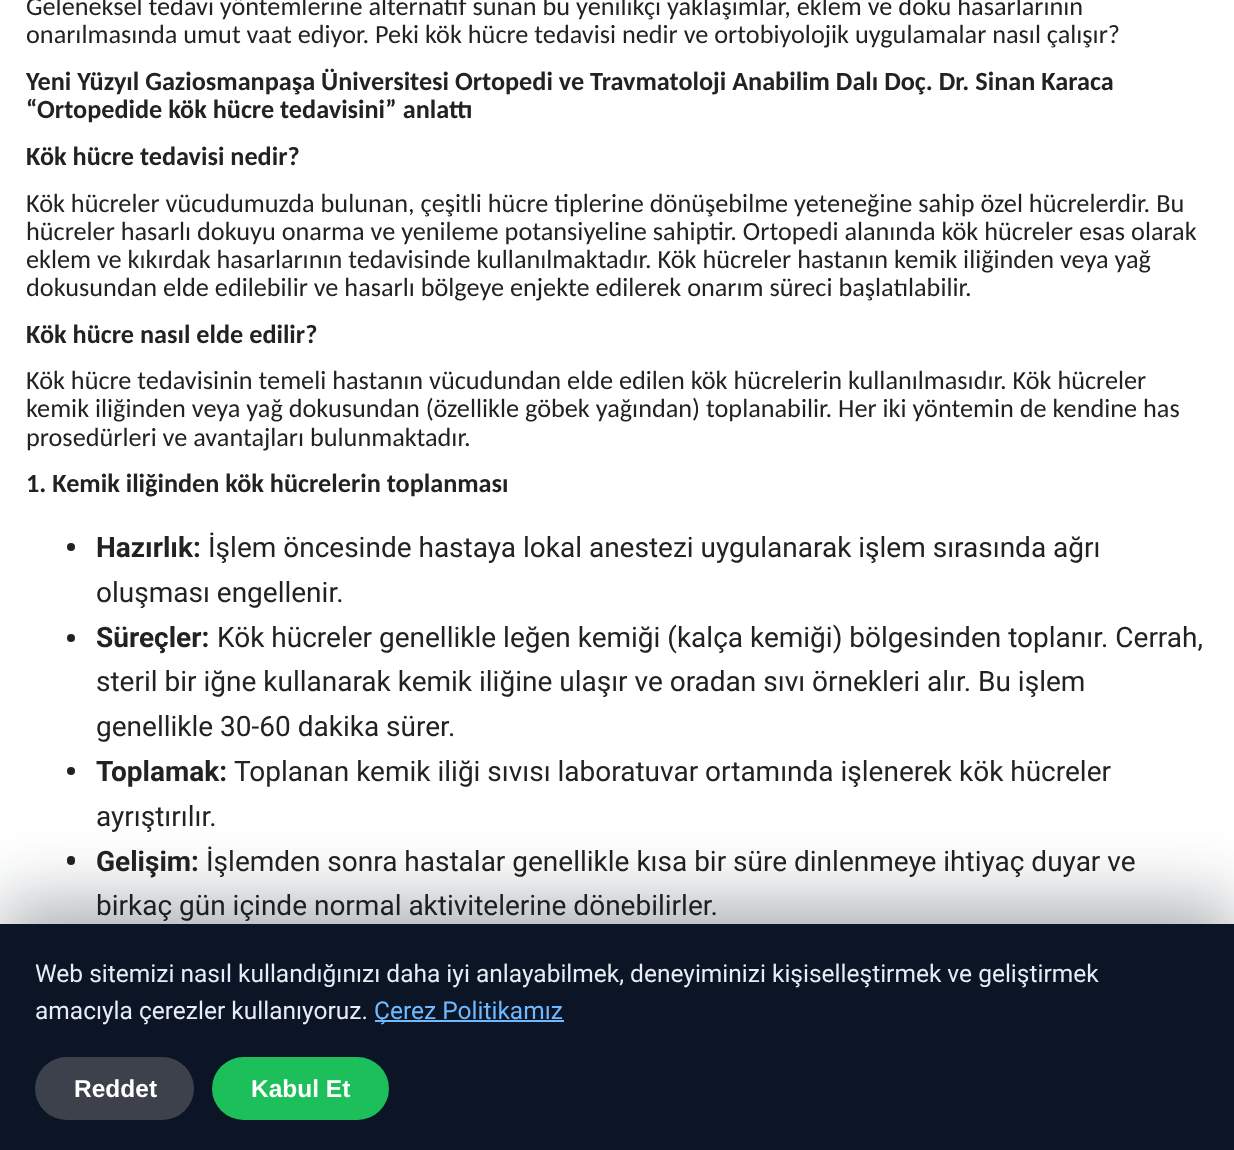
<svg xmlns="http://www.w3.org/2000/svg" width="1234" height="1150">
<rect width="100%" height="100%" fill="#fff"/>
<text x="26" y="15" style="font-family:Carlito;font-size:26.25px;fill:#222">Geleneksel tedavi yöntemlerine alternatif sunan bu yenilikçi yaklaşımlar, eklem ve doku hasarlarının</text>
<text x="26" y="43" style="font-family:Carlito;font-size:26.25px;fill:#222">onarılmasında umut vaat ediyor. Peki kök hücre tedavisi nedir ve ortobiyolojik uygulamalar nasıl çalışır?</text>
<text x="26" y="90" style="font-family:Carlito;font-size:26.25px;font-weight:bold;fill:#222">Yeni Yüzyıl Gaziosmanpaşa Üniversitesi Ortopedi ve Travmatoloji Anabilim Dalı Doç. Dr. Sinan Karaca</text>
<text x="26" y="118" style="font-family:Carlito;font-size:26.25px;font-weight:bold;fill:#222">“Ortopedide kök hücre tedavisini” anlattı</text>
<text x="26" y="165" style="font-family:Carlito;font-size:26.25px;font-weight:bold;fill:#222">Kök hücre tedavisi nedir?</text>
<text x="26" y="212" style="font-family:Carlito;font-size:26.25px;fill:#222">Kök hücreler vücudumuzda bulunan, çeşitli hücre tiplerine dönüşebilme yeteneğine sahip özel hücrelerdir. Bu</text>
<text x="26" y="240" style="font-family:Carlito;font-size:26.25px;fill:#222">hücreler hasarlı dokuyu onarma ve yenileme potansiyeline sahiptir. Ortopedi alanında kök hücreler esas olarak</text>
<text x="26" y="268" style="font-family:Carlito;font-size:26.25px;fill:#222">eklem ve kıkırdak hasarlarının tedavisinde kullanılmaktadır. Kök hücreler hastanın kemik iliğinden veya yağ</text>
<text x="26" y="296" style="font-family:Carlito;font-size:26.25px;fill:#222">dokusundan elde edilebilir ve hasarlı bölgeye enjekte edilerek onarım süreci başlatılabilir.</text>
<text x="26" y="343" style="font-family:Carlito;font-size:26.25px;font-weight:bold;fill:#222">Kök hücre nasıl elde edilir?</text>
<text x="26" y="389" style="font-family:Carlito;font-size:26.25px;fill:#222">Kök hücre tedavisinin temeli hastanın vücudundan elde edilen kök hücrelerin kullanılmasıdır. Kök hücreler</text>
<text x="26" y="417" style="font-family:Carlito;font-size:26.25px;fill:#222">kemik iliğinden veya yağ dokusundan (özellikle göbek yağından) toplanabilir. Her iki yöntemin de kendine has</text>
<text x="26" y="446" style="font-family:Carlito;font-size:26.25px;fill:#222">prosedürleri ve avantajları bulunmaktadır.</text>
<text x="26" y="492" style="font-family:Carlito;font-size:26.25px;font-weight:bold;fill:#222">1. Kemik iliğinden kök hücrelerin toplanması</text>
<circle cx="71" cy="547" r="4" fill="#222"/>
<text x="96" y="557" style="font-family:Roboto;font-size:28px;font-weight:bold;fill:#222">Hazırlık:</text>
<text x="208" y="557" style="font-family:Roboto;font-size:28px;fill:#222">İşlem öncesinde hastaya lokal anestezi uygulanarak işlem sırasında ağrı</text>
<text x="96" y="602" style="font-family:Roboto;font-size:28px;fill:#222">oluşması engellenir.</text>
<circle cx="71" cy="638" r="4" fill="#222"/>
<text x="96" y="647" style="font-family:Roboto;font-size:28px;font-weight:bold;fill:#222">Süreçler:</text>
<text x="217" y="647" style="font-family:Roboto;font-size:28px;fill:#222">Kök hücreler genellikle leğen kemiği (kalça kemiği) bölgesinden toplanır. Cerrah,</text>
<text x="96" y="691" style="font-family:Roboto;font-size:28px;fill:#222">steril bir iğne kullanarak kemik iliğine ulaşır ve oradan sıvı örnekleri alır. Bu işlem</text>
<text x="96" y="736" style="font-family:Roboto;font-size:28px;fill:#222">genellikle 30-60 dakika sürer.</text>
<circle cx="71" cy="771" r="4" fill="#222"/>
<text x="96" y="781" style="font-family:Roboto;font-size:28px;font-weight:bold;fill:#222">Toplamak:</text>
<text x="234" y="781" style="font-family:Roboto;font-size:28px;fill:#222">Toplanan kemik iliği sıvısı laboratuvar ortamında işlenerek kök hücreler</text>
<text x="96" y="826" style="font-family:Roboto;font-size:28px;fill:#222">ayrıştırılır.</text>
<rect x="67" y="856" width="8" height="9" rx="4" fill="#222"/>
<text x="96" y="871" style="font-family:Roboto;font-size:28px;font-weight:bold;fill:#222">Gelişim:</text>
<text x="206" y="871" style="font-family:Roboto;font-size:28px;fill:#222">İşlemden sonra hastalar genellikle kısa bir süre dinlenmeye ihtiyaç duyar ve</text>
<text x="96" y="915" style="font-family:Roboto;font-size:28px;fill:#222">birkaç gün içinde normal aktivitelerine dönebilirler.</text>
<rect y="903" width="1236" height="228" fill="#0c152259" filter="blur(35px)"/>
<rect y="924" width="1234" height="226" fill="#0b1526"/>
<text x="35" y="982" style="font-family:Roboto;font-size:24.5px;fill:#e7ecf6">Web sitemizi nasıl kullandığınızı daha iyi anlayabilmek, deneyiminizi kişiselleştirmek ve geliştirmek</text>
<text x="35" y="1019" style="font-family:Roboto;font-size:24.5px;fill:#e7ecf6">amacıyla çerezler kullanıyoruz.</text>
<rect x="375" y="1020" width="189" height="2" fill="#6fb9ff"/>
<text x="374" y="1019" style="font-family:Roboto;font-size:24.5px;fill:#6fb9ff">Çerez Politikamız</text>
<rect x="35" y="1057" width="159" height="63" rx="31.5" fill="#3c414b"/>
<text x="74" y="1097" style="font-family:Liberation Sans;font-size:24.5px;font-weight:bold;fill:#fff">Reddet</text>
<rect x="212" y="1057" width="177" height="63" rx="31.5" fill="#1dbf5b"/>
<text x="251" y="1097" style="font-family:Liberation Sans;font-size:24.5px;font-weight:bold;fill:#fff">Kabul Et</text>
</svg>
